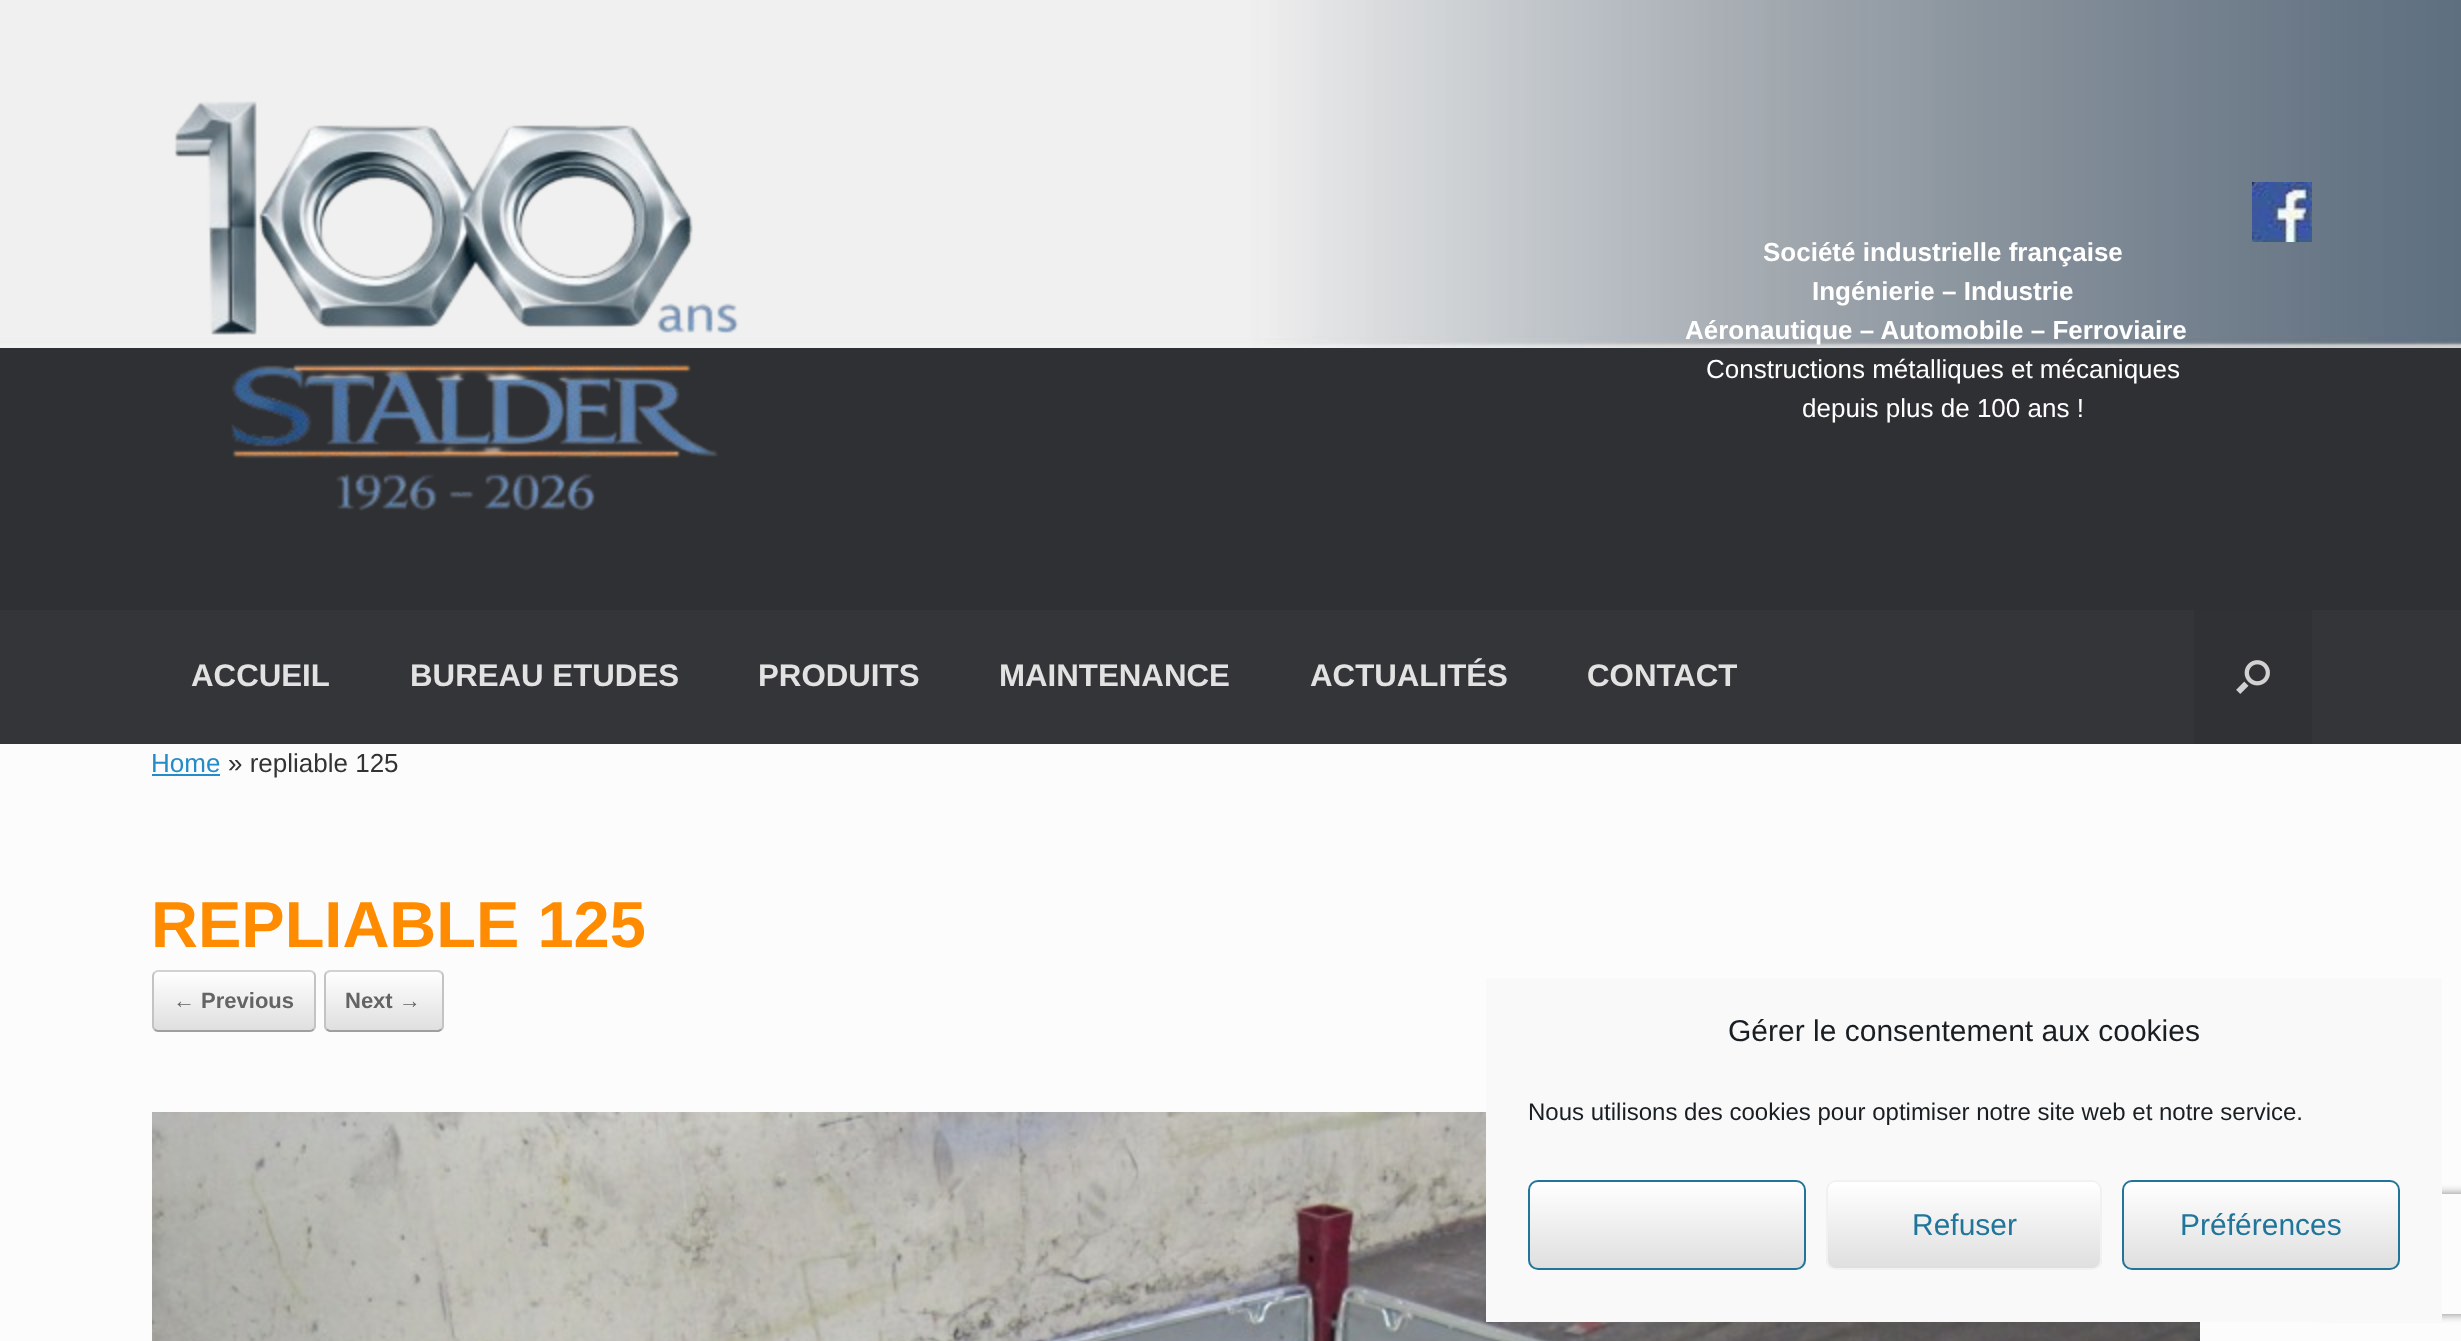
<svg xmlns="http://www.w3.org/2000/svg" width="2461" height="1341">
<defs>
<clipPath id="clip1"><rect x="152" y="970" width="164" height="62" rx="6"/></clipPath>
<linearGradient id="g1" gradientUnits="userSpaceOnUse" x1="154" y1="1030" x2="154" y2="972"><stop offset="0" stop-color="#dfdfdf"/><stop offset="1" stop-color="#fff"/></linearGradient>
<clipPath id="clip2"><rect x="324" y="970" width="120" height="62" rx="6"/></clipPath>
<linearGradient id="g2" gradientUnits="userSpaceOnUse" x1="326" y1="972" x2="326" y2="914"><stop offset="0" stop-color="#dfdfdf"/><stop offset="1" stop-color="#fff"/></linearGradient>
<linearGradient id="g3" gradientUnits="userSpaceOnUse" x1="326" y1="1030" x2="326" y2="972"><stop offset="0" stop-color="#dfdfdf"/><stop offset="1" stop-color="#fff"/></linearGradient>
<linearGradient id="g4" gradientUnits="userSpaceOnUse" x1="326" y1="1088" x2="326" y2="1030"><stop offset="0" stop-color="#dfdfdf"/><stop offset="1" stop-color="#fff"/></linearGradient>
<clipPath id="clip3"><path d="M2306 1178h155v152h-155zm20 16h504c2 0 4 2 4 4v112c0 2-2 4-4 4h-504c-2 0-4-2-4-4v-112c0-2 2-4 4-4z" clip-rule="evenodd"/></clipPath>
<clipPath id="clip4"><rect x="1528" y="1180" width="278" height="90" rx="10"/></clipPath>
<linearGradient id="g5" gradientUnits="userSpaceOnUse" x1="1530" y1="1268" x2="1530" y2="1182"><stop offset="0" stop-color="#dfdfdf"/><stop offset="1" stop-color="#fff"/></linearGradient>
<clipPath id="clip5"><rect x="1826" y="1180" width="276" height="90" rx="10"/></clipPath>
<linearGradient id="g6" gradientUnits="userSpaceOnUse" x1="1828" y1="1268" x2="1828" y2="1182"><stop offset="0" stop-color="#dfdfdf"/><stop offset="1" stop-color="#fff"/></linearGradient>
<clipPath id="clip6"><rect x="2122" y="1180" width="278" height="90" rx="10"/></clipPath>
<linearGradient id="g7" gradientUnits="userSpaceOnUse" x1="2124" y1="1268" x2="2124" y2="1182"><stop offset="0" stop-color="#dfdfdf"/><stop offset="1" stop-color="#fff"/></linearGradient>
</defs>
<rect width="100%" height="100%" fill="#2f3033"/>
<image x="0" y="0" width="2461" height="348" href="media/1.png"/>
<image x="174" y="101" width="565" height="410" href="media/2.png"/>
<image x="2252" y="182" width="60" height="60" href="media/3.png"/>
<text x="1763" y="261" style="font-family:Liberation Sans;font-size:26px;font-weight:bold;fill:#fff">Société industrielle française</text>
<text x="1812" y="300" style="font-family:Liberation Sans;font-size:26px;font-weight:bold;fill:#fff">Ingénierie – Industrie</text>
<text x="1685" y="339" style="font-family:Liberation Sans;font-size:26px;font-weight:bold;fill:#fff">Aéronautique – Automobile – Ferroviaire</text>
<text x="1706" y="378" style="font-family:Liberation Sans;font-size:26px;fill:#fff">Constructions métalliques et mécaniques</text>
<text x="1802" y="417" style="font-family:Liberation Sans;font-size:26px;fill:#fff">depuis plus de 100 ans !</text>
<rect y="610" width="2461" height="134" fill="#343538"/>
<text x="191" y="686" style="font-family:Liberation Sans;font-size:31.25px;font-weight:bold;fill:#e2e2e2">ACCUEIL</text>
<text x="410" y="686" style="font-family:Liberation Sans;font-size:31.25px;font-weight:bold;fill:#e2e2e2">BUREAU ETUDES</text>
<text x="758" y="686" style="font-family:Liberation Sans;font-size:31.25px;font-weight:bold;fill:#e2e2e2">PRODUITS</text>
<text x="999" y="686" style="font-family:Liberation Sans;font-size:31.25px;font-weight:bold;fill:#e2e2e2">MAINTENANCE</text>
<text x="1310" y="686" style="font-family:Liberation Sans;font-size:31.25px;font-weight:bold;fill:#e2e2e2">ACTUALITÉS</text>
<text x="1587" y="686" style="font-family:Liberation Sans;font-size:31.25px;font-weight:bold;fill:#e2e2e2">CONTACT</text>
<rect x="2194" y="610" width="118" height="134" fill="#303134"/>
<image x="2236" y="660" width="34" height="34" href="media/4.png"/>
<rect y="744" width="2461" height="597" fill="#fcfcfc"/>
<text x="151" y="772" style="font-family:Liberation Sans;font-size:26px;fill:#248cc8">Home</text>
<rect x="152" y="774" width="68" height="2" fill="#248cc8"/>
<text x="228" y="772" style="font-family:Liberation Sans;font-size:26px;fill:#333">» repliable 125</text>
<text x="151" y="947" style="font-family:Liberation Sans;font-size:65px;font-weight:bold;fill:#ff8c00">REPLIABLE 125</text>
<g clip-path="url(#clip1)">
<rect x="152" y="972" width="164" height="58" fill="url(#g1)"/>
</g>
<path d="M154.5 972.5c1-1 2-1.5 3.5-1.5h152c1.5 0 2.5 .5 3.5 1.5" fill="none" stroke="#d2d2d2" stroke-width="2"/>
<path d="M313.5 972.5c1 1 1.5 2 1.5 3.5v50c0 1.5-.5 2.5-1.5 3.5" fill="none" stroke="#c3c3c3" stroke-width="2"/>
<path d="M313.5 1029.5c-1 1-2 1.5-3.5 1.5h-152c-1.5 0-2.5-.5-3.5-1.5" fill="none" stroke="#9f9f9f" stroke-width="2"/>
<path d="M154.5 1029.5c-1-1-1.5-2-1.5-3.5v-50c0-1.5 .5-2.5 1.5-3.5" fill="none" stroke="#c3c3c3" stroke-width="2"/>
<text x="173" y="1008" style="font-family:Liberation Sans;font-size:22px;font-weight:bold;fill:#646464">← Previous</text>
<g clip-path="url(#clip2)">
<rect x="324" y="970" width="120" height="2" fill="url(#g2)"/>
<rect x="324" y="972" width="120" height="58" fill="url(#g3)"/>
<rect x="324" y="1030" width="120" height="2" fill="url(#g4)"/>
</g>
<path d="M326.5 972.5l3-1.5h109l3 1.5" fill="none" stroke="#d2d2d2" stroke-width="2"/>
<path d="M441.5 972.5c1 1 1.5 2 1.5 3.5v50c0 1.5-.5 2.5-1.5 3.5" fill="none" stroke="#c3c3c3" stroke-width="2"/>
<path d="M441.5 1029.5l-3 1.5h-109l-3-1.5" fill="none" stroke="#9f9f9f" stroke-width="2"/>
<path d="M326.5 1029.5c-1-1-1.5-2-1.5-3.5v-50c0-1.5 .5-2.5 1.5-3.5" fill="none" stroke="#c3c3c3" stroke-width="2"/>
<text x="345" y="1008" style="font-family:Liberation Sans;font-size:22px;font-weight:bold;fill:#646464">Next →</text>
<image x="152" y="1112" width="2048" height="229" href="media/5.png"/>
<g clip-path="url(#clip3)">
<rect x="2322" y="1194" width="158" height="120" rx="4" fill="#808080" filter="blur(5px)"/>
</g>
<rect x="1486" y="978" width="956" height="344" fill="#f9f9f9"/>
<text x="1728" y="1041" style="font-family:Liberation Sans;font-size:30px;fill:#191e23">Gérer le consentement aux cookies</text>
<text x="1528" y="1120" style="font-family:Liberation Sans;font-size:24px;fill:#191e23">Nous utilisons des cookies pour optimiser notre site web et notre service.</text>
<g clip-path="url(#clip4)">
<rect x="1528" y="1182" width="278" height="86" fill="url(#g5)"/>
</g>
<rect x="1529" y="1181" width="276" height="88" rx="9" fill="none" stroke="#21759b" stroke-width="2"/>
<g clip-path="url(#clip5)">
<rect x="1826" y="1182" width="276" height="86" fill="url(#g6)"/>
</g>
<rect x="1827" y="1181" width="274" height="88" rx="9" fill="none" stroke="#f1f1f1" stroke-width="2"/>
<text x="1912" y="1235" style="font-family:Liberation Sans;font-size:30px;fill:#21759b">Refuser</text>
<g clip-path="url(#clip6)">
<rect x="2122" y="1182" width="278" height="86" fill="url(#g7)"/>
</g>
<rect x="2123" y="1181" width="276" height="88" rx="9" fill="none" stroke="#21759b" stroke-width="2"/>
<text x="2180" y="1235" style="font-family:Liberation Sans;font-size:30px;fill:#21759b">Préférences</text>
</svg>
